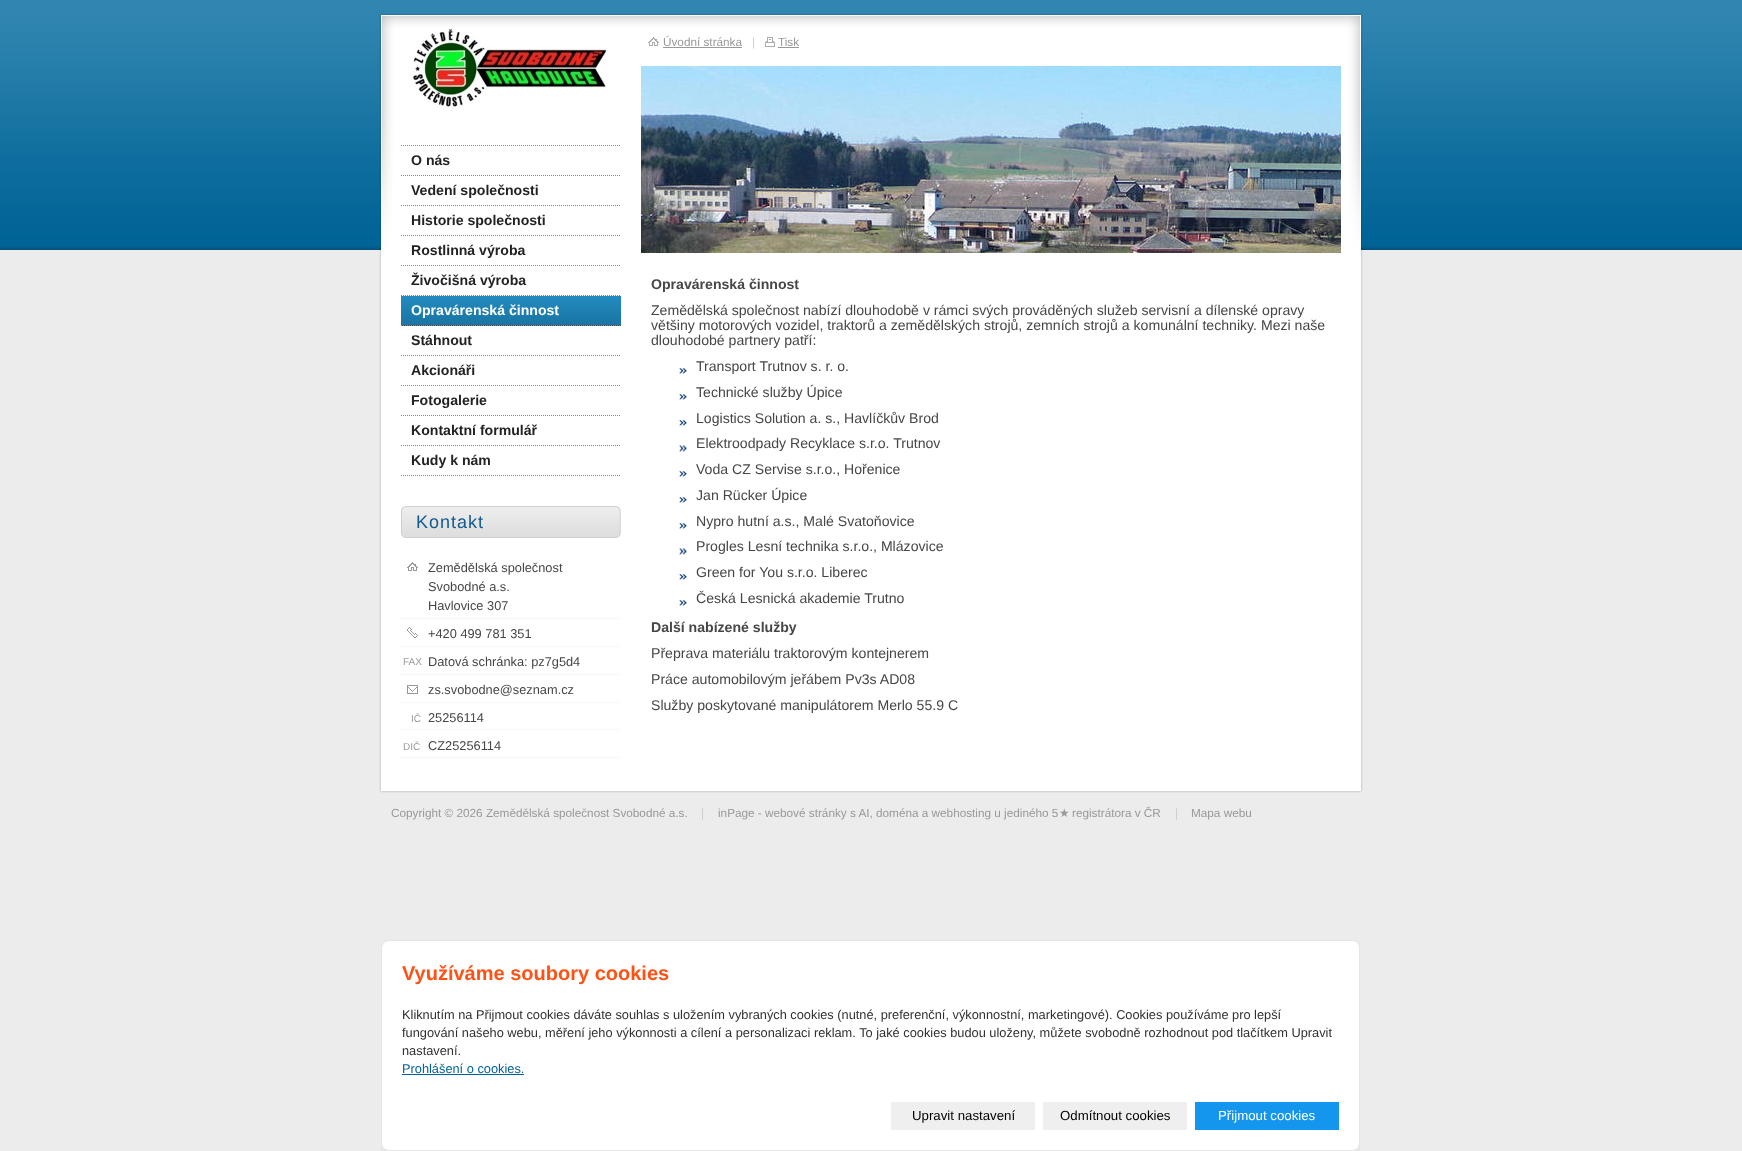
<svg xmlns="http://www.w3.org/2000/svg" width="1742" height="1151">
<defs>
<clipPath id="clip1"><rect x="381" y="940" width="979" height="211"/></clipPath>
</defs>
<rect width="100%" height="100%" fill="#ececec"/>
<image x="0" y="0" width="1742" height="250" href="media/1.png"/>
<image x="379" y="250" width="984" height="538" href="media/2.png"/>
<image x="379" y="13" width="262" height="237" href="media/6.png"/>
<image x="413" y="28" width="194" height="81" href="media/3.png"/>
<image x="641" y="13" width="722" height="237" href="media/12.png"/>
<image x="648" y="37" width="11" height="9" href="media/4.png"/>
<text x="663" y="46" style="font-family:Liberation Sans;font-size:11.75px;fill:#999">Úvodní stránka</text>
<rect x="663" y="47" width="79" height="1" fill="#999"/>
<text x="752" y="46" style="font-family:Liberation Sans;font-size:11.75px;fill:#ccc">|</text>
<image x="765" y="37" width="10" height="10" href="media/5.png"/>
<text x="778" y="46" style="font-family:Liberation Sans;font-size:11.75px;fill:#999">Tisk</text>
<rect x="778" y="47" width="21" height="1" fill="#999"/>
<path d="M401 145.5h220" fill="none" stroke="#888" stroke-dasharray="1 1"/>
<path d="M401 175.5h220" fill="none" stroke="#888" stroke-dasharray="1 1"/>
<text x="411" y="165" style="font-family:Liberation Sans;font-size:14.1px;font-weight:bold;fill:#222">O nás</text>
<path d="M401 205.5h220" fill="none" stroke="#888" stroke-dasharray="1 1"/>
<text x="411" y="195" style="font-family:Liberation Sans;font-size:14.1px;font-weight:bold;fill:#222">Vedení společnosti</text>
<path d="M401 235.5h220" fill="none" stroke="#888" stroke-dasharray="1 1"/>
<text x="411" y="225" style="font-family:Liberation Sans;font-size:14.1px;font-weight:bold;fill:#222">Historie společnosti</text>
<path d="M401 265.5h220" fill="none" stroke="#888" stroke-dasharray="1 1"/>
<text x="411" y="255" style="font-family:Liberation Sans;font-size:14.1px;font-weight:bold;fill:#222">Rostlinná výroba</text>
<path d="M401 295.5h220" fill="none" stroke="#888" stroke-dasharray="1 1"/>
<text x="411" y="285" style="font-family:Liberation Sans;font-size:14.1px;font-weight:bold;fill:#222">Živočišná výroba</text>
<rect x="402" y="325" width="219" height="1" fill="#464646"/>
<image x="401" y="296" width="220" height="29" href="media/7.png"/>
<path d="M401 325.5h220" fill="none" stroke="#888" stroke-dasharray="1 1"/>
<text x="411" y="315" style="font-family:Liberation Sans;font-size:14.1px;font-weight:bold;fill:#fff">Opravárenská činnost</text>
<path d="M401 355.5h220" fill="none" stroke="#888" stroke-dasharray="1 1"/>
<text x="411" y="345" style="font-family:Liberation Sans;font-size:14.1px;font-weight:bold;fill:#222">Stáhnout</text>
<path d="M401 385.5h220" fill="none" stroke="#888" stroke-dasharray="1 1"/>
<text x="411" y="375" style="font-family:Liberation Sans;font-size:14.1px;font-weight:bold;fill:#222">Akcionáři</text>
<path d="M401 415.5h220" fill="none" stroke="#888" stroke-dasharray="1 1"/>
<text x="411" y="405" style="font-family:Liberation Sans;font-size:14.1px;font-weight:bold;fill:#222">Fotogalerie</text>
<path d="M401 445.5h220" fill="none" stroke="#888" stroke-dasharray="1 1"/>
<text x="411" y="435" style="font-family:Liberation Sans;font-size:14.1px;font-weight:bold;fill:#222">Kontaktní formulář</text>
<path d="M401 475.5h220" fill="none" stroke="#888" stroke-dasharray="1 1"/>
<text x="411" y="465" style="font-family:Liberation Sans;font-size:14.1px;font-weight:bold;fill:#222">Kudy k nám</text>
<image x="401" y="506" width="220" height="32" href="media/8.png"/>
<text x="416" y="528" style="font-family:Liberation Sans;font-size:18px;letter-spacing:1px;fill:#125b8e">Kontakt</text>
<image x="407" y="562" width="11" height="9" href="media/9.png"/>
<path d="M401 618.5h220" fill="none" stroke="#eee" stroke-dasharray="1 1"/>
<text x="428" y="572" style="font-family:Liberation Sans;font-size:12.8px;fill:#464646">Zemědělská společnost</text>
<text x="428" y="591" style="font-family:Liberation Sans;font-size:12.8px;fill:#464646">Svobodné a.s.</text>
<text x="428" y="610" style="font-family:Liberation Sans;font-size:12.8px;fill:#464646">Havlovice 307</text>
<image x="407" y="627" width="11" height="11" href="media/10.png"/>
<path d="M401 646.5h220" fill="none" stroke="#eee" stroke-dasharray="1 1"/>
<text x="428" y="638" style="font-family:Liberation Sans;font-size:12.8px;fill:#464646">+420 499 781 351</text>
<path d="M401 674.5h220" fill="none" stroke="#eee" stroke-dasharray="1 1"/>
<text x="403" y="665" style="font-family:Liberation Sans;font-size:10px;fill:#999">FAX</text>
<text x="428" y="666" style="font-family:Liberation Sans;font-size:12.8px;fill:#464646">Datová schránka: pz7g5d4</text>
<image x="407" y="685" width="11" height="9" href="media/11.png"/>
<path d="M401 702.5h220" fill="none" stroke="#eee" stroke-dasharray="1 1"/>
<text x="428" y="694" style="font-family:Liberation Sans;font-size:12.8px;fill:#464646">zs.svobodne@seznam.cz</text>
<path d="M401 729.5h220" fill="none" stroke="#eee" stroke-dasharray="1 1"/>
<text x="411" y="722" style="font-family:Liberation Sans;font-size:10px;fill:#999">IČ</text>
<text x="428" y="722" style="font-family:Liberation Sans;font-size:12.8px;fill:#464646">25256114</text>
<path d="M401 757.5h220" fill="none" stroke="#eee" stroke-dasharray="1 1"/>
<text x="403" y="750" style="font-family:Liberation Sans;font-size:10px;fill:#999">DIČ</text>
<text x="428" y="750" style="font-family:Liberation Sans;font-size:12.8px;fill:#464646">CZ25256114</text>
<image x="641" y="66" width="700" height="187" href="media/13.png"/>
<text x="651" y="289" style="font-family:Liberation Sans;font-size:14.1px;font-weight:bold;fill:#464646">Opravárenská činnost</text>
<text x="651" y="315" style="font-family:Liberation Sans;font-size:14.1px;fill:#464646">Zemědělská společnost nabízí dlouhodobě v rámci svých prováděných služeb servisní a dílenské opravy</text>
<text x="651" y="330" style="font-family:Liberation Sans;font-size:14.1px;fill:#464646">většiny motorových vozidel, traktorů a zemědělských strojů, zemních strojů a komunální techniky. Mezi naše</text>
<text x="651" y="345" style="font-family:Liberation Sans;font-size:14.1px;fill:#464646">dlouhodobé partnery patří:</text>
<image x="679" y="368" width="8" height="6" href="media/14.png"/>
<text x="696" y="371" style="font-family:Liberation Sans;font-size:14.1px;fill:#464646">Transport Trutnov s. r. o.</text>
<image x="679" y="394" width="8" height="6" href="media/14.png"/>
<text x="696" y="397" style="font-family:Liberation Sans;font-size:14.1px;fill:#464646">Technické služby Úpice</text>
<image x="679" y="420" width="8" height="6" href="media/14.png"/>
<text x="696" y="423" style="font-family:Liberation Sans;font-size:14.1px;fill:#464646">Logistics Solution a. s., Havlíčkův Brod</text>
<image x="679" y="445" width="8" height="7" href="media/15.png"/>
<text x="696" y="448" style="font-family:Liberation Sans;font-size:14.1px;fill:#464646">Elektroodpady Recyklace s.r.o. Trutnov</text>
<image x="679" y="471" width="8" height="6" href="media/14.png"/>
<text x="696" y="474" style="font-family:Liberation Sans;font-size:14.1px;fill:#464646">Voda CZ Servise s.r.o., Hořenice</text>
<image x="679" y="497" width="8" height="6" href="media/14.png"/>
<text x="696" y="500" style="font-family:Liberation Sans;font-size:14.1px;fill:#464646">Jan Rücker Úpice</text>
<image x="679" y="523" width="8" height="6" href="media/14.png"/>
<text x="696" y="526" style="font-family:Liberation Sans;font-size:14.1px;fill:#464646">Nypro hutní a.s., Malé Svatoňovice</text>
<image x="679" y="548" width="8" height="7" href="media/15.png"/>
<text x="696" y="551" style="font-family:Liberation Sans;font-size:14.1px;fill:#464646">Progles Lesní technika s.r.o., Mlázovice</text>
<image x="679" y="574" width="8" height="6" href="media/14.png"/>
<text x="696" y="577" style="font-family:Liberation Sans;font-size:14.1px;fill:#464646">Green for You s.r.o. Liberec</text>
<image x="679" y="600" width="8" height="6" href="media/14.png"/>
<text x="696" y="603" style="font-family:Liberation Sans;font-size:14.1px;fill:#464646">Česká Lesnická akademie Trutno</text>
<text x="651" y="632" style="font-family:Liberation Sans;font-size:14.1px;font-weight:bold;fill:#464646">Další nabízené služby</text>
<text x="651" y="658" style="font-family:Liberation Sans;font-size:14.1px;fill:#464646">Přeprava materiálu traktorovým kontejnerem</text>
<text x="651" y="684" style="font-family:Liberation Sans;font-size:14.1px;fill:#464646">Práce automobilovým jeřábem Pv3s AD08</text>
<text x="651" y="710" style="font-family:Liberation Sans;font-size:14.1px;fill:#464646">Služby poskytované manipulátorem Merlo 55.9 C</text>
<image x="379" y="788" width="984" height="5" href="media/16.png"/>
<text x="391" y="817" style="font-family:Liberation Sans;font-size:11.75px;fill:#999">Copyright © 2026 Zemědělská společnost Svobodné a.s.</text>
<text x="701" y="817" style="font-family:Liberation Sans;font-size:11.75px;fill:#ccc">|</text>
<text x="718" y="817" style="font-family:Liberation Sans;font-size:11.75px;fill:#999">inPage - webové stránky s AI, doména a webhosting u jediného 5</text>
<text x="1059" y="817" style="font-family:DejaVu Sans;font-size:11.75px;fill:#999">★</text>
<text x="1072" y="817" style="font-family:Liberation Sans;font-size:11.75px;fill:#999">registrátora v ČR</text>
<text x="1175" y="817" style="font-family:Liberation Sans;font-size:11.75px;fill:#ccc">|</text>
<text x="1191" y="817" style="font-family:Liberation Sans;font-size:11.75px;fill:#999">Mapa webu</text>
<g clip-path="url(#clip1)">
<rect x="391" y="952" width="959" height="191" fill="#00000080" filter="blur(10px)"/>
</g>
<rect x="381" y="940" width="979" height="211" rx="8" fill="#fff"/>
<rect x="381.5" y="940.5" width="978" height="210" rx="7.5" fill="none" stroke="#0000001a"/>
<text x="402" y="980" style="font-family:Liberation Sans;font-size:20px;font-weight:bold;fill:#ff5113">Využíváme soubory cookies</text>
<text x="402" y="1019" style="font-family:Liberation Sans;font-size:12.8px;fill:#303030">Kliknutím na Přijmout cookies dáváte souhlas s uložením vybraných cookies (nutné, preferenční, výkonnostní, marketingové). Cookies používáme pro lepší</text>
<text x="402" y="1037" style="font-family:Liberation Sans;font-size:12.8px;fill:#303030">fungování našeho webu, měření jeho výkonnosti a cílení a personalizaci reklam. To jaké cookies budou uloženy, můžete svobodně rozhodnout pod tlačítkem Upravit</text>
<text x="402" y="1055" style="font-family:Liberation Sans;font-size:12.8px;fill:#303030">nastavení.</text>
<text x="402" y="1073" style="font-family:Liberation Sans;font-size:12.8px;fill:#016297">Prohlášení o cookies.</text>
<rect x="402" y="1074" width="122" height="1" fill="#016297"/>
<rect x="891" y="1102" width="144" height="28" fill="#efefef"/>
<text x="912" y="1120" style="font-family:Liberation Sans;font-size:13.25px;fill:#000">Upravit nastavení</text>
<rect x="1043" y="1102" width="144" height="28" fill="#efefef"/>
<text x="1060" y="1120" style="font-family:Liberation Sans;font-size:13.25px;fill:#000">Odmítnout cookies</text>
<rect x="1195" y="1102" width="144" height="28" fill="#1496ee"/>
<text x="1218" y="1120" style="font-family:Liberation Sans;font-size:13.25px;fill:#fff">Přijmout cookies</text>
</svg>
